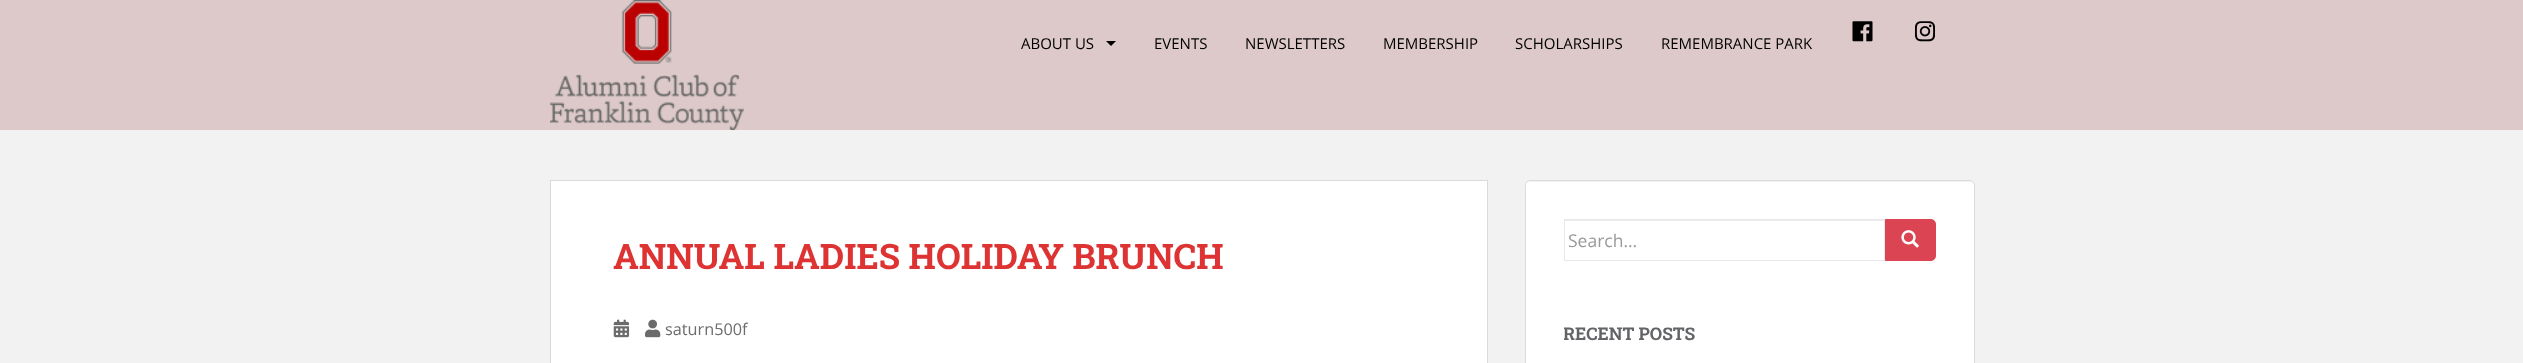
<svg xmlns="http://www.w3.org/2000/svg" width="2523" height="363">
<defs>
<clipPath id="clip1"><rect x="1564" y="324" width="372" height="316"/></clipPath>
</defs>
<rect width="100%" height="100%" fill="#f2f2f2"/>
<rect width="2523" height="130" fill="#ddc9c9"/>
<image x="550" y="0" width="194" height="130" href="media/1.png"/>
<image x="1852" y="21" width="21" height="21" href="media/2.png"/>
<image x="1915" y="21" width="20" height="21" href="media/3.png"/>
<text x="1021" y="49" style="font-family:Open Sans;font-size:15px;fill:#000">ABOUT US</text>
<path d="M1106 41h10l-5 5z" fill="#000"/>
<text x="1154" y="49" style="font-family:Open Sans;font-size:15px;fill:#000">EVENTS</text>
<text x="1245" y="49" style="font-family:Open Sans;font-size:15px;fill:#000">NEWSLETTERS</text>
<text x="1383" y="49" style="font-family:Open Sans;font-size:15px;fill:#000">MEMBERSHIP</text>
<text x="1515" y="49" style="font-family:Open Sans;font-size:15px;fill:#000">SCHOLARSHIPS</text>
<text x="1661" y="49" style="font-family:Open Sans;font-size:15px;fill:#000">REMEMBRANCE PARK</text>
<rect x="550.5" y="180.5" width="937" height="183" fill="#fff" stroke="#dadada"/>
<text x="613" y="269" style="font-family:Roboto Slab;font-size:35px;font-weight:bold;fill:#d33">ANNUAL LADIES HOLIDAY BRUNCH</text>
<image x="613" y="319" width="17" height="19" href="media/4.png"/>
<image x="645" y="319" width="16" height="19" href="media/5.png"/>
<text x="665" y="335" style="font-family:Open Sans;font-size:16.25px;fill:#6b6b6b">saturn500f</text>
<rect x="1525" y="180" width="450" height="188" rx="5" fill="#fff"/>
<path d="M1530 182h440c2 0 4 2 4 4c0-3-1-5-4-5h-440l-2 1l-1 1l-1 3c0-2 2-4 4-4z" fill="#f2f2f2"/>
<rect x="1525.5" y="180.5" width="449" height="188" rx="4.5" fill="none" stroke="#dadada"/>
<rect x="1565" y="220" width="319" height="1" fill="#ececec"/>
<rect x="1564.5" y="219.5" width="320" height="41" fill="none" stroke="#e8e8e8"/>
<text x="1568" y="247" style="font-family:Open Sans;font-size:17.5px;fill:#999">Search…</text>
<path d="M1885.5 219.5h45.5c2.5 0 4.5 2 4.5 4.5v32c0 2.5-2 4.5-4.5 4.5h-45.5z" fill="#da4453" stroke="#da4453"/>
<image x="1901" y="230" width="18" height="18" href="media/6.png"/>
<g clip-path="url(#clip1)">
<text x="1563" y="340" style="font-family:Roboto Slab;font-size:17.5px;font-weight:bold;fill:#636467">RECENT POSTS</text>
</g>
</svg>
